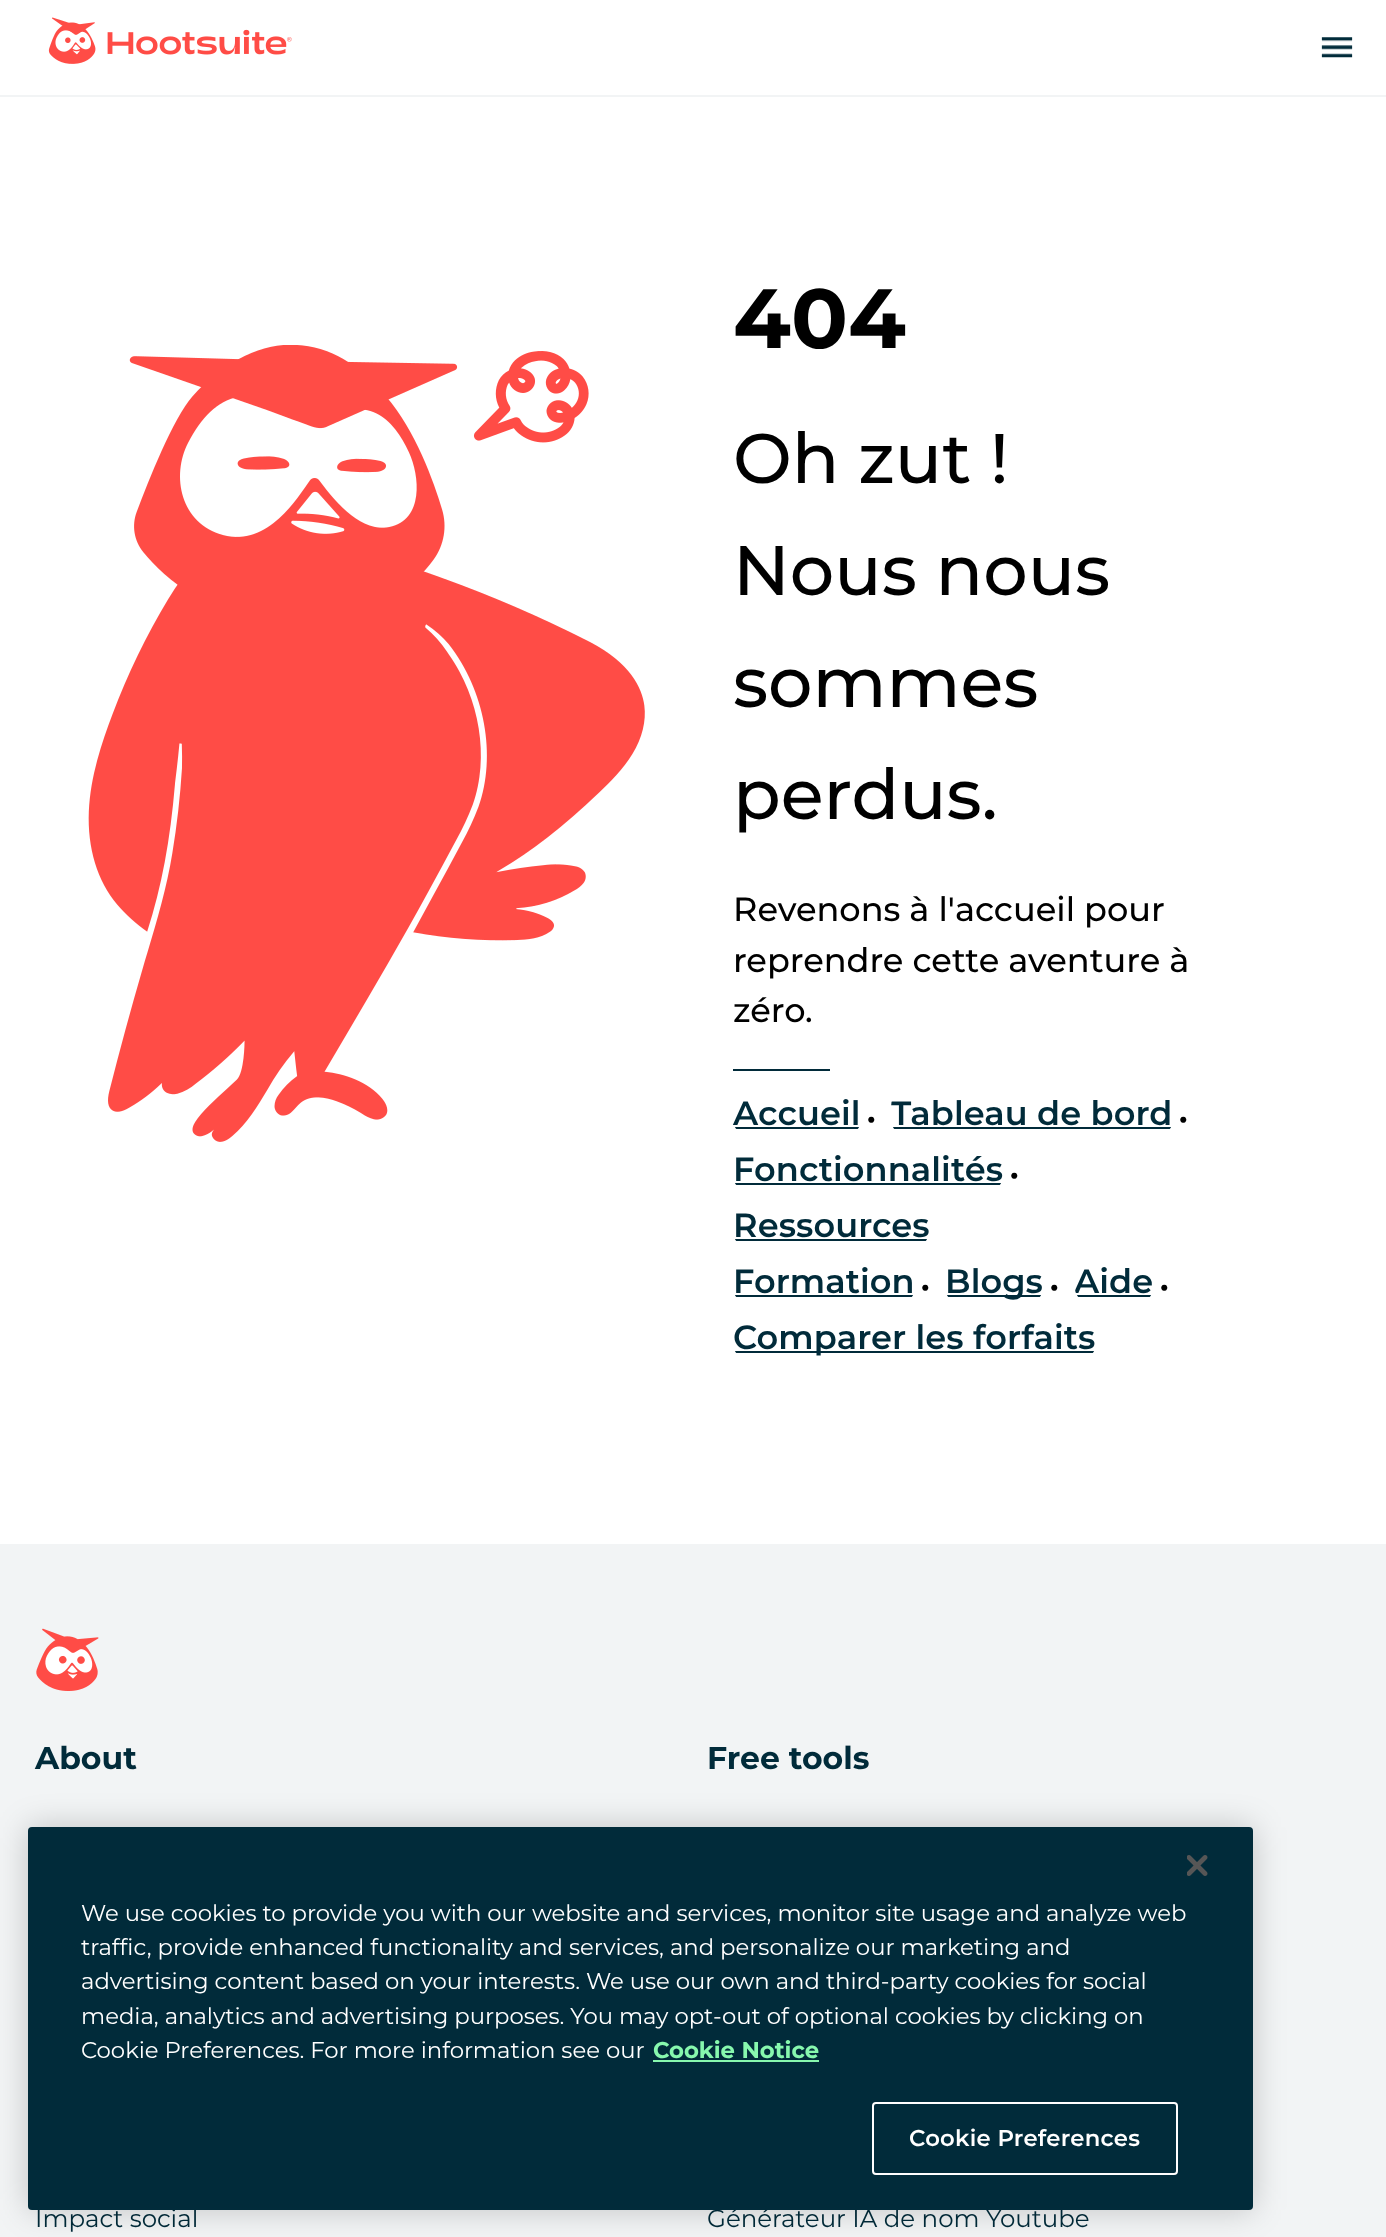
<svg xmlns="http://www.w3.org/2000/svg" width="1386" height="2237">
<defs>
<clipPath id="clip1"><rect x="733" y="1092" width="128" height="42" rx="14"/></clipPath>
<clipPath id="clip2"><rect x="891" y="1092" width="282" height="42" rx="14"/></clipPath>
<clipPath id="clip3"><rect x="733" y="1148" width="270" height="42" rx="14"/></clipPath>
<clipPath id="clip4"><rect x="733" y="1204" width="196" height="42" rx="14"/></clipPath>
<clipPath id="clip5"><rect x="733" y="1260" width="182" height="42" rx="14"/></clipPath>
<clipPath id="clip6"><rect x="945" y="1260" width="98" height="42" rx="14"/></clipPath>
<clipPath id="clip7"><rect x="1075" y="1260" width="78" height="42" rx="14"/></clipPath>
<clipPath id="clip8"><rect x="733" y="1316" width="363" height="42" rx="14"/></clipPath>
</defs>
<rect width="100%" height="100%" fill="#fff"/>
<rect y="95" width="1386" height="2" fill="#f2f4f5"/>
<image x="48" y="17" width="244" height="47" href="media/1.png"/>
<image x="1321" y="37" width="32" height="21" href="media/2.png"/>
<image x="88" y="345" width="557" height="797" href="media/3.png"/>
<text x="733" y="348" style="font-family:Montserrat Alternates;font-size:84px;font-weight:bold;fill:#000">404</text>
<text x="733" y="483" style="font-family:Montserrat;font-size:70px;font-weight:500;fill:#000">Oh zut !</text>
<text x="733" y="595" style="font-family:Montserrat;font-size:70px;font-weight:500;fill:#000">Nous nous</text>
<text x="733" y="707" style="font-family:Montserrat;font-size:70px;font-weight:500;fill:#000">sommes</text>
<text x="733" y="819" style="font-family:Montserrat;font-size:70px;font-weight:500;fill:#000">perdus.</text>
<text x="733" y="921" style="font-family:Montserrat;font-size:33.6px;font-weight:500;fill:#000">Revenons à l'accueil pour</text>
<text x="733" y="972" style="font-family:Montserrat;font-size:33.6px;font-weight:500;fill:#000">reprendre cette aventure à</text>
<text x="733" y="1022" style="font-family:Montserrat;font-size:33.6px;font-weight:500;fill:#000">zéro.</text>
<rect x="733" y="1069" width="97" height="2" fill="#012b3a"/>
<text x="733" y="1125" style="font-family:Montserrat;font-size:33.6px;font-weight:600;letter-spacing:0.1px;fill:#012b3a">Accueil</text>
<g clip-path="url(#clip1)">
<rect x="733" y="1127" width="128" height="2" fill="#012b3a"/>
</g>
<text x="866" y="1129" style="font-family:Montserrat;font-size:33.6px;font-weight:500;fill:#000">•</text>
<g clip-path="url(#clip2)">
<text x="891" y="1125" style="font-family:Montserrat;font-size:33.6px;font-weight:600;letter-spacing:0.1px;fill:#012b3a">Tableau de bord</text>
<rect x="891" y="1127" width="282" height="2" fill="#012b3a"/>
</g>
<text x="1178" y="1129" style="font-family:Montserrat;font-size:33.6px;font-weight:500;fill:#000">•</text>
<text x="733" y="1181" style="font-family:Montserrat;font-size:33.6px;font-weight:600;letter-spacing:0.1px;fill:#012b3a">Fonctionnalités</text>
<g clip-path="url(#clip3)">
<rect x="733" y="1183" width="270" height="2" fill="#012b3a"/>
</g>
<text x="1009" y="1185" style="font-family:Montserrat;font-size:33.6px;font-weight:500;fill:#000">•</text>
<text x="733" y="1237" style="font-family:Montserrat;font-size:33.6px;font-weight:600;letter-spacing:0.1px;fill:#012b3a">Ressources</text>
<g clip-path="url(#clip4)">
<rect x="733" y="1239" width="196" height="2" fill="#012b3a"/>
</g>
<text x="733" y="1293" style="font-family:Montserrat;font-size:33.6px;font-weight:600;letter-spacing:0.1px;fill:#012b3a">Formation</text>
<g clip-path="url(#clip5)">
<rect x="733" y="1295" width="182" height="2" fill="#012b3a"/>
</g>
<text x="920" y="1297" style="font-family:Montserrat;font-size:33.6px;font-weight:500;fill:#000">•</text>
<g clip-path="url(#clip6)">
<rect x="945" y="1295" width="98" height="2" fill="#012b3a"/>
</g>
<text x="945" y="1293" style="font-family:Montserrat;font-size:33.6px;font-weight:600;letter-spacing:0.1px;fill:#012b3a">Blogs</text>
<text x="1049" y="1297" style="font-family:Montserrat;font-size:33.6px;font-weight:500;fill:#000">•</text>
<g clip-path="url(#clip7)">
<text x="1074" y="1293" style="font-family:Montserrat;font-size:33.6px;font-weight:600;letter-spacing:0.1px;fill:#012b3a">Aide</text>
<rect x="1075" y="1295" width="78" height="2" fill="#012b3a"/>
</g>
<text x="1159" y="1297" style="font-family:Montserrat;font-size:33.6px;font-weight:500;fill:#000">•</text>
<g clip-path="url(#clip8)">
<rect x="733" y="1351" width="363" height="2" fill="#012b3a"/>
</g>
<text x="733" y="1349" style="font-family:Montserrat;font-size:33.6px;font-weight:600;letter-spacing:0.1px;fill:#012b3a">Comparer les forfaits</text>
<rect y="1544" width="1386" height="693" fill="#f2f4f5"/>
<image x="36" y="1628" width="63" height="63" href="media/4.png"/>
<text x="35" y="1769" style="font-family:Montserrat;font-size:31.5px;font-weight:bold;fill:#012b3a">About</text>
<text x="35" y="2227" style="font-family:Montserrat;font-size:24.5px;fill:#012b3a">Impact social</text>
<text x="707" y="1769" style="font-family:Montserrat;font-size:31.5px;font-weight:bold;fill:#012b3a">Free tools</text>
<text x="707" y="2227" style="font-family:Montserrat;font-size:24.5px;fill:#012b3a">Générateur IA de nom Youtube</text>
<rect x="28" y="1827" width="1225" height="383" rx="4" fill="#00000033" filter="blur(16px)"/>
<rect x="28" y="1827" width="1225" height="383" rx="4" fill="#012b3a"/>
<image x="1187" y="1855" width="21" height="21" href="media/5.png"/>
<text x="81" y="1921" style="font-family:Montserrat;font-size:22.75px;fill:#fff">We use cookies to provide you with our website and services, monitor site usage and analyze web</text>
<text x="81" y="1955" style="font-family:Montserrat;font-size:22.75px;fill:#fff">traffic, provide enhanced functionality and services, and personalize our marketing and</text>
<text x="81" y="1989" style="font-family:Montserrat;font-size:22.75px;fill:#fff">advertising content based on your interests. We use our own and third-party cookies for social</text>
<text x="81" y="2024" style="font-family:Montserrat;font-size:22.75px;fill:#fff">media, analytics and advertising purposes. You may opt-out of optional cookies by clicking on</text>
<text x="81" y="2058" style="font-family:Montserrat;font-size:22.75px;fill:#fff">Cookie Preferences. For more information see our</text>
<text x="653" y="2058" style="font-family:Montserrat;font-size:22.75px;font-weight:bold;fill:#87f8ae">Cookie Notice</text>
<rect x="653" y="2060" width="166" height="2" fill="#87f8ae"/>
<rect x="873" y="2103" width="304" height="71" rx="3" fill="none" stroke="#fff" stroke-width="2"/>
<text x="909" y="2146" style="font-family:Montserrat;font-size:22.75px;font-weight:600;letter-spacing:0.25px;fill:#fff">Cookie Preferences</text>
</svg>
